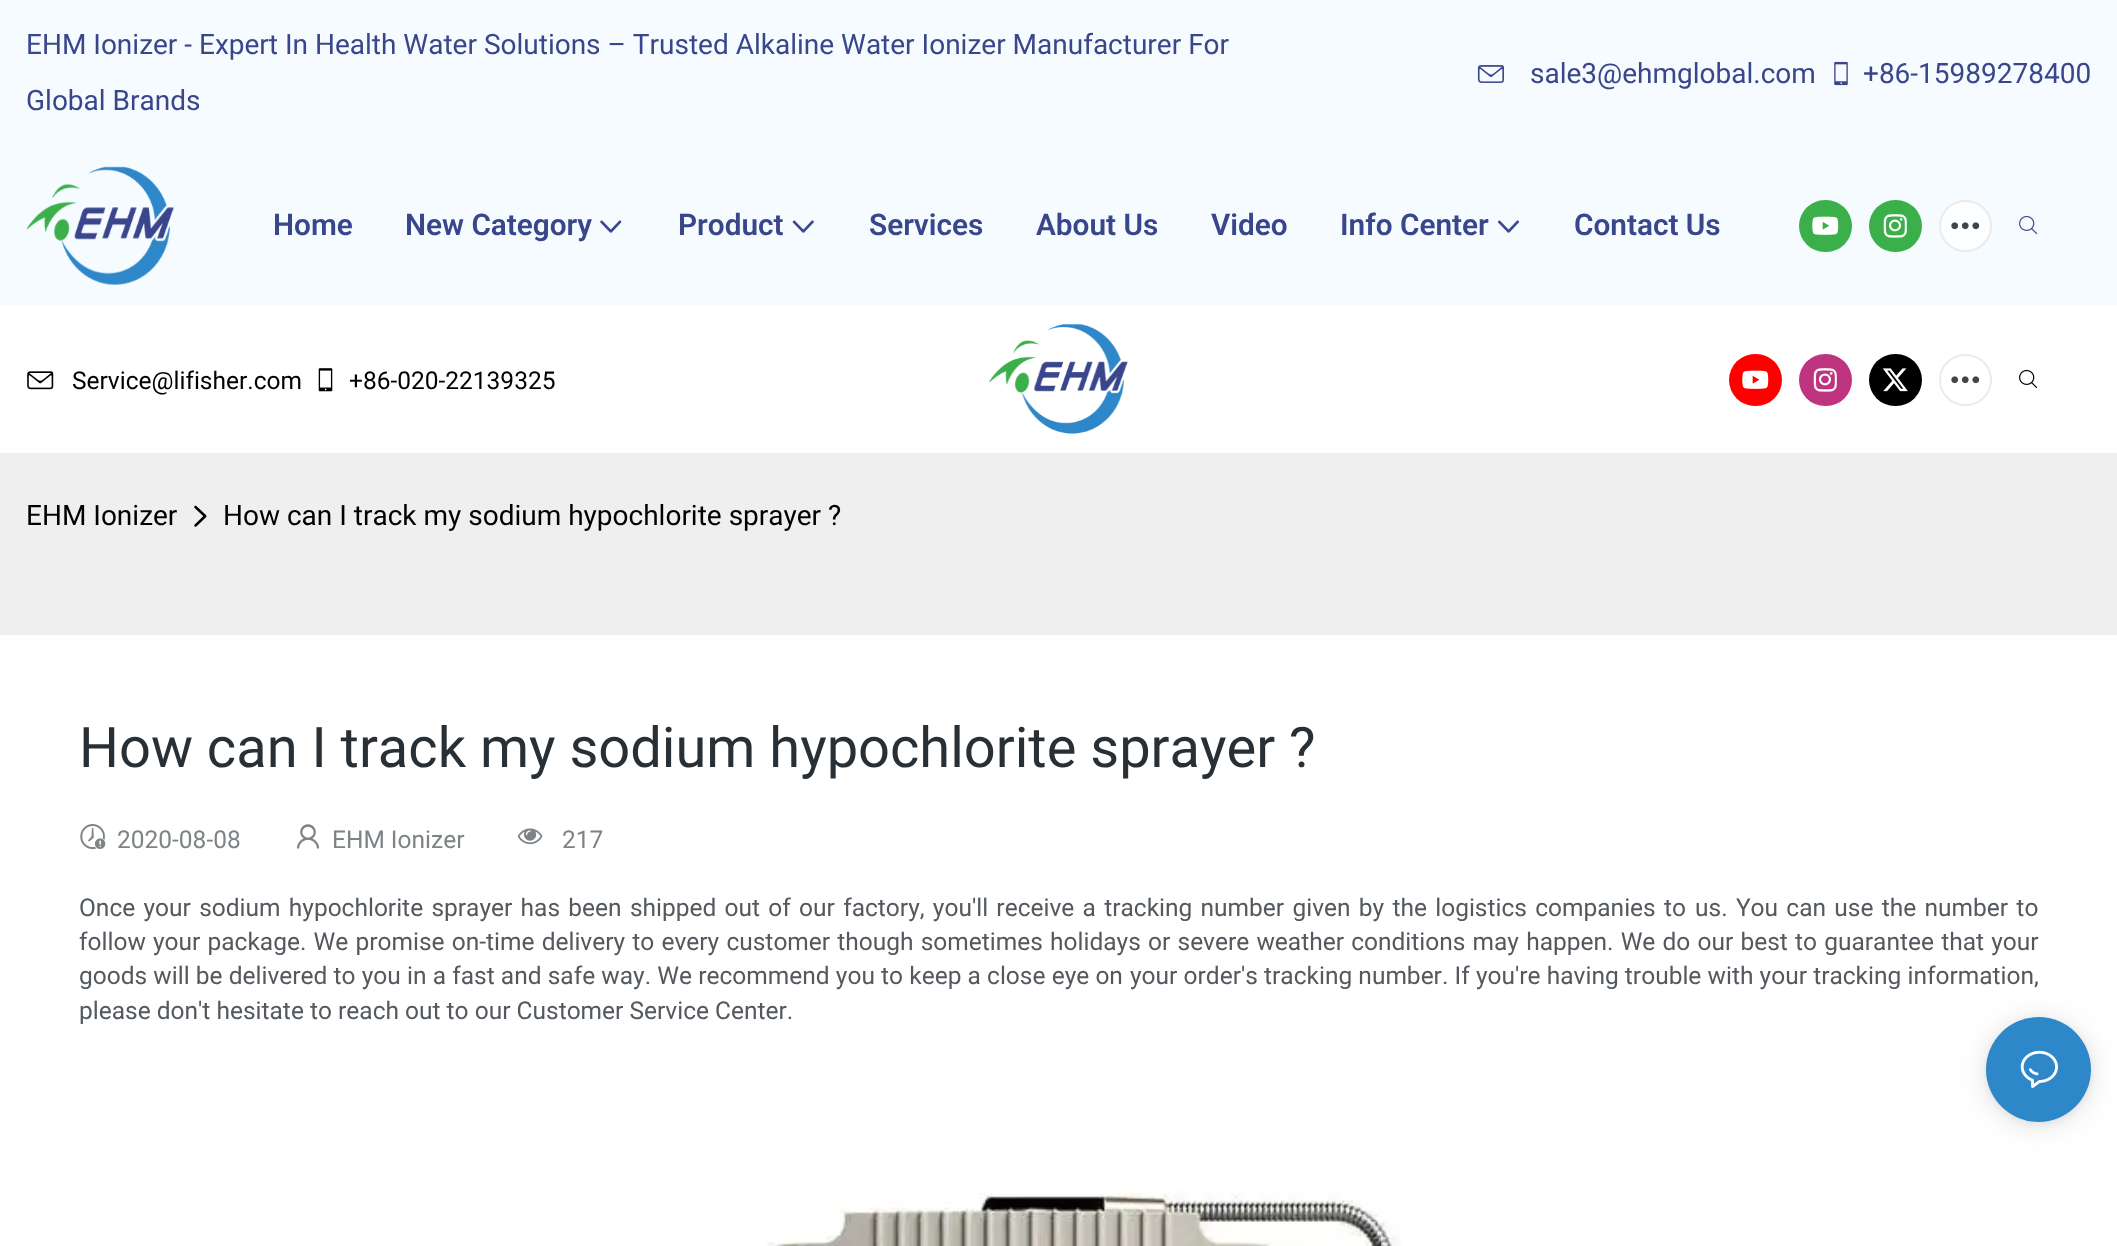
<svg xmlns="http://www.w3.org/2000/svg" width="2117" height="1246">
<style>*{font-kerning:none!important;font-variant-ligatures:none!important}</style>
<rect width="100%" height="100%" fill="#efefef"/>
<rect width="2117" height="305" fill="#f5fbff"/>
<text x="26" y="54" style="font-family:Roboto;font-size:28px;fill:#39468b">EHM Ionizer - Expert In Health Water Solutions – Trusted Alkaline Water Ionizer Manufacturer For</text>
<text x="26" y="110" style="font-family:Roboto;font-size:28px;fill:#39468b">Global Brands</text>
<image x="1477" y="65" width="27" height="18" href="media/1.png"/>
<text x="1530" y="83" style="font-family:Roboto;font-size:28px;fill:#39468b">sale3@ehmglobal.com</text>
<image x="1834" y="61" width="14" height="25" href="media/2.png"/>
<text x="1863" y="83" style="font-family:Roboto;font-size:28px;fill:#39468b">+86-15989278400</text>
<image x="27" y="166" width="147" height="119" href="media/3.png"/>
<text x="273" y="235" style="font-family:Roboto;font-size:29.75px;font-weight:600;fill:#39468b">Home</text>
<text x="405" y="235" style="font-family:Roboto;font-size:29.75px;font-weight:600;fill:#39468b">New Category</text>
<image x="600" y="220" width="22" height="13" href="media/4.png"/>
<text x="678" y="235" style="font-family:Roboto;font-size:29.75px;font-weight:600;fill:#39468b">Product</text>
<image x="792" y="220" width="22" height="13" href="media/5.png"/>
<text x="869" y="235" style="font-family:Roboto;font-size:29.75px;font-weight:600;fill:#39468b">Services</text>
<text x="1036" y="235" style="font-family:Roboto;font-size:29.75px;font-weight:600;fill:#39468b">About Us</text>
<text x="1211" y="235" style="font-family:Roboto;font-size:29.75px;font-weight:600;fill:#39468b">Video</text>
<text x="1340" y="235" style="font-family:Roboto;font-size:29.75px;font-weight:600;fill:#39468b">Info Center</text>
<image x="1498" y="220" width="21" height="13" href="media/6.png"/>
<text x="1574" y="235" style="font-family:Roboto;font-size:29.75px;font-weight:600;fill:#39468b">Contact Us</text>
<rect x="1799" y="200" width="53" height="52" rx="26" fill="#3baf49"/>
<image x="1812" y="216" width="27" height="19" href="media/7.png"/>
<rect x="1869" y="200" width="53" height="52" rx="26" fill="#3baf49"/>
<image x="1883" y="214" width="24" height="24" href="media/8.png"/>
<rect x="1940" y="201" width="51" height="50" rx="25" fill="#fdfeff" stroke="#ebebeb" stroke-width="2"/>
<image x="1951" y="222" width="29" height="8" href="media/9.png"/>
<image x="2019" y="215" width="19" height="20" href="media/10.png"/>
<rect y="305" width="2117" height="148" fill="#fff"/>
<image x="27" y="371" width="27" height="19" href="media/11.png"/>
<text x="72" y="389" style="font-family:Roboto;font-size:24.5px;fill:#000">Service@lifisher.com</text>
<image x="318" y="368" width="15" height="24" href="media/12.png"/>
<text x="349" y="389" style="font-family:Roboto;font-size:24.5px;fill:#000">+86-020-22139325</text>
<image x="989" y="324" width="139" height="110" href="media/13.png"/>
<rect x="1729" y="354" width="53" height="52" rx="26" fill="#f00"/>
<image x="1742" y="370" width="27" height="19" href="media/14.png"/>
<rect x="1799" y="354" width="53" height="52" rx="26" fill="#be347f"/>
<image x="1813" y="368" width="24" height="24" href="media/15.png"/>
<rect x="1869" y="354" width="53" height="52" rx="26" fill="#000"/>
<image x="1882" y="368" width="26" height="24" href="media/16.png"/>
<rect x="1940" y="355" width="51" height="50" rx="25" fill="none" stroke="#ebebeb" stroke-width="2"/>
<image x="1951" y="376" width="29" height="8" href="media/17.png"/>
<image x="2019" y="369" width="19" height="20" href="media/18.png"/>
<text x="26" y="525" style="font-family:Roboto;font-size:28px;fill:#000">EHM Ionizer</text>
<image x="194" y="505" width="13" height="22" href="media/19.png"/>
<text x="223" y="525" style="font-family:Roboto;font-size:28px;fill:#000">How can I track my sodium hypochlorite sprayer ?</text>
<rect y="635" width="2117" height="611" fill="#fff"/>
<text x="79" y="767" style="font-family:Roboto;font-size:56px;fill:#283036">How can I track my sodium hypochlorite sprayer ?</text>
<image x="80" y="824" width="26" height="26" href="media/20.png"/>
<text x="117" y="848" style="font-family:Roboto;font-size:24.5px;fill:#7e8386">2020-08-08</text>
<image x="296" y="824" width="24" height="25" href="media/21.png"/>
<text x="332" y="848" style="font-family:Roboto;font-size:24.5px;fill:#7e8386">EHM Ionizer</text>
<image x="517" y="828" width="26" height="17" href="media/22.png"/>
<text x="562" y="848" style="font-family:Roboto;font-size:24.5px;fill:#7e8386">217</text>
<text x="79" y="916" word-spacing="2.2" style="font-family:Roboto;font-size:24.5px;fill:#53595e">Once your sodium hypochlorite sprayer has been shipped out of our factory, you'll receive a tracking number given by the logistics companies to</text>
<text x="1695" y="916" word-spacing="2.2" style="font-family:Roboto;font-size:24.5px;fill:#53595e">us. You can use the number to</text>
<text x="79" y="950" word-spacing="1.1" style="font-family:Roboto;font-size:24.5px;fill:#53595e">follow your package. We promise on-time delivery to every customer though sometimes holidays or severe weather conditions may happen. We do our best to guarantee that your</text>
<text x="79" y="984" word-spacing="0.1" style="font-family:Roboto;font-size:24.5px;fill:#53595e">goods will be delivered to you in a fast and safe way. We recommend you to keep a close eye on</text>
<text x="1130" y="984" word-spacing="0.1" style="font-family:Roboto;font-size:24.5px;fill:#53595e">your order's tracking number. If you're having trouble with your tracking information,</text>
<text x="79" y="1019" style="font-family:Roboto;font-size:24.5px;fill:#53595e">please don't hesitate to reach out to our Customer Service Center.</text>
<image x="766" y="1187" width="635" height="59" href="media/23.png"/>
<rect x="1986" y="1020" width="105" height="105" rx="52.5" fill="#0000001f" filter="blur(14px)"/>
<rect x="1986" y="1019" width="105" height="105" rx="52.5" fill="#0000000f" filter="blur(3.5px)"/>
<circle cx="2038.5" cy="1069.5" r="52.5" fill="#2e87c8"/>
<image x="2020" y="1050" width="38" height="38" href="media/24.png"/>
</svg>
